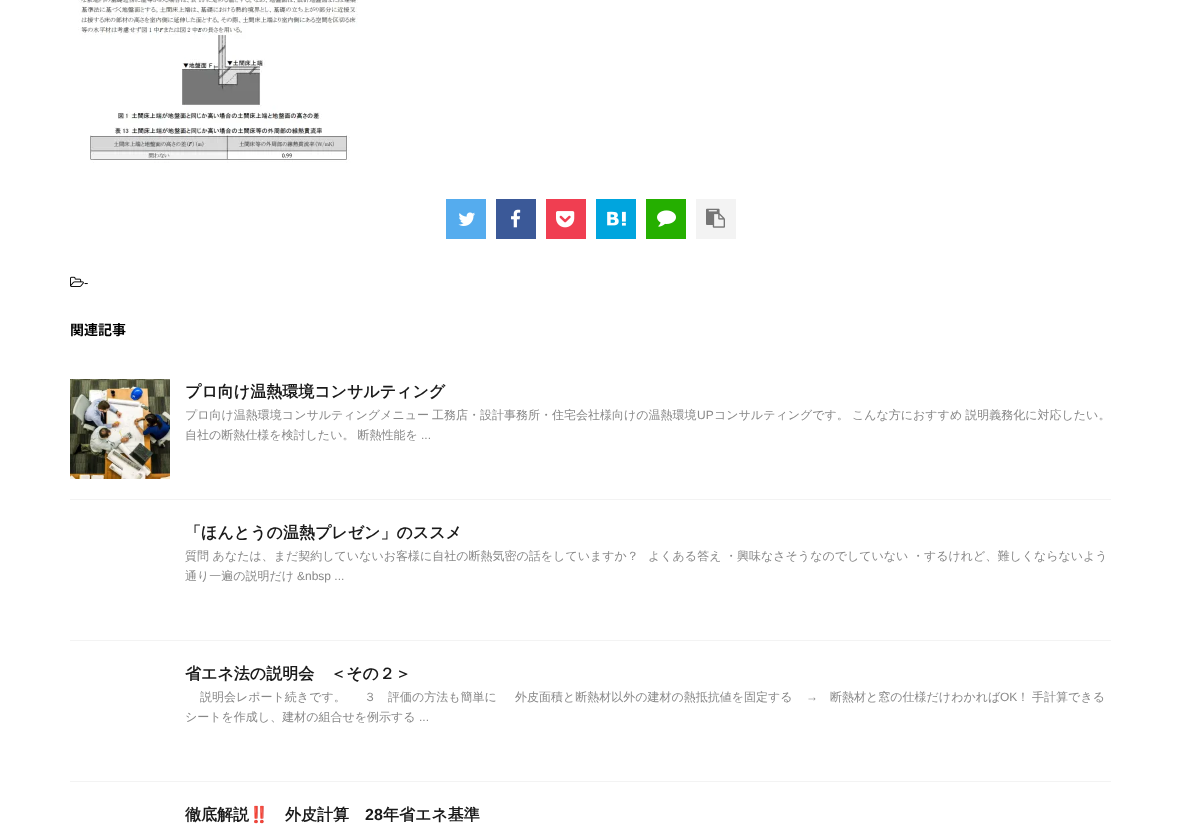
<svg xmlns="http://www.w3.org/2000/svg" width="1181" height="834">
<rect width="100%" height="100%" fill="#fff"/>
<image x="78" y="0" width="280" height="163" href="media/1.png"/>
<rect x="446" y="199" width="40" height="40" fill="#55acee"/>
<image x="458" y="212" width="17" height="14" href="media/2.png"/>
<rect x="496" y="199" width="40" height="40" fill="#3b5998"/>
<image x="511" y="209" width="10" height="19" href="media/3.png"/>
<rect x="546" y="199" width="40" height="40" fill="#f03e51"/>
<image x="556" y="211" width="19" height="17" href="media/4.png"/>
<rect x="596" y="199" width="40" height="40" fill="#00a5de"/>
<image x="607" y="211" width="19" height="15" href="media/5.png"/>
<rect x="646" y="199" width="40" height="40" fill="#25af00"/>
<image x="657" y="210" width="19" height="17" href="media/6.png"/>
<rect x="696" y="199" width="40" height="40" fill="#f3f3f3"/>
<image x="706" y="208" width="19" height="20" href="media/7.png"/>
<image x="70" y="276" width="14" height="11" href="media/8.png"/>
<text x="84" y="287" style="font-family:Liberation Sans;font-size:13px;fill:#000">-</text>
<text x="70" y="335" style="font-family:Noto Sans JP;font-size:14px;font-weight:bold;fill:#000">関連記事</text>
<rect x="70" y="499" width="1041" height="1" fill="#f3f3f3"/>
<image x="70" y="379" width="100" height="100" href="media/9.png"/>
<text x="185" y="397" style="font-family:WenQuanYi Zen Hei;font-size:16px;font-weight:bold;fill:#1a1a1a">プロ向け温熱環境コンサルティング</text>
<text x="185" y="419" word-spacing="-0.5" style="font-family:WenQuanYi Zen Hei;font-size:12px;font-weight:500;fill:#888">プロ向け温熱環境コンサルティングメニュー 工務店・設計事務所・住宅会社様向けの温熱環境</text>
<text x="697" y="419" style="font-family:Liberation Sans;font-size:12px;fill:#888">UP</text>
<text x="714" y="419" word-spacing="-0.5" style="font-family:WenQuanYi Zen Hei;font-size:12px;font-weight:500;fill:#888">コンサルティングです。 こんな方におすすめ 説明義務化に対応したい。</text>
<text x="185" y="439" word-spacing="-0.5" style="font-family:WenQuanYi Zen Hei;font-size:12px;font-weight:500;fill:#888">自社の断熱仕様を検討したい。 断熱性能を</text>
<text x="421" y="439" style="font-family:Liberation Sans;font-size:12px;fill:#888">...</text>
<rect x="70" y="640" width="1041" height="1" fill="#f3f3f3"/>
<text x="185" y="538" style="font-family:WenQuanYi Zen Hei;font-size:16px;font-weight:bold;fill:#1a1a1a">「ほんとうの温熱プレゼン」のススメ</text>
<text x="185" y="560" style="font-family:WenQuanYi Zen Hei;font-size:12px;font-weight:500;fill:#888">質問 あなたは、まだ契約していないお客様に自社の断熱気密の話をしていますか？</text>
<text x="648" y="560" style="font-family:WenQuanYi Zen Hei;font-size:12px;font-weight:500;fill:#888">よくある答え ・興味なさそうなのでしていない ・するけれど、難しくならないよう</text>
<text x="185" y="580" style="font-family:WenQuanYi Zen Hei;font-size:12px;font-weight:500;fill:#888">通り一遍の説明だけ</text>
<text x="297" y="580" style="font-family:Liberation Sans;font-size:12px;fill:#888">&amp;nbsp ...</text>
<rect x="70" y="781" width="1041" height="1" fill="#f3f3f3"/>
<text x="185" y="679" style="font-family:WenQuanYi Zen Hei;font-size:16px;font-weight:bold;fill:#1a1a1a">省エネ法の説明会　＜その２＞</text>
<text x="200" y="701" word-spacing="-0.5" style="font-family:WenQuanYi Zen Hei;font-size:12px;font-weight:500;fill:#888">説明会レポート続きです。 　 ３　評価の方法も簡単に 　 外皮面積と断熱材以外の建材の熱抵抗値を固定する</text>
<text x="806" y="701" style="font-family:Liberation Sans;font-size:12px;fill:#888">→</text>
<text x="830" y="701" style="font-family:WenQuanYi Zen Hei;font-size:12px;font-weight:500;fill:#888">断熱材と窓の仕様だけわかれば</text>
<text x="1000" y="701" style="font-family:Liberation Sans;font-size:12px;fill:#888">OK</text>
<text x="1017" y="701" word-spacing="-0.5" style="font-family:WenQuanYi Zen Hei;font-size:12px;font-weight:500;fill:#888">！ 手計算できる</text>
<text x="185" y="721" style="font-family:WenQuanYi Zen Hei;font-size:12px;font-weight:500;fill:#888">シートを作成し、建材の組合せを例示する</text>
<text x="419" y="721" style="font-family:Liberation Sans;font-size:12px;fill:#888">...</text>
<text x="185" y="820" style="font-family:WenQuanYi Zen Hei;font-size:16px;font-weight:bold;fill:#1a1a1a">徹底解説</text>
<text x="249" y="820" style="font-family:Noto Color Emoji;font-size:16px;font-weight:bold;fill:#1a1a1a">‼️</text>
<text x="285" y="820" style="font-family:WenQuanYi Zen Hei;font-size:16px;font-weight:bold;fill:#1a1a1a">外皮計算</text>
<text x="365" y="820" style="font-family:Liberation Sans;font-size:16px;font-weight:bold;fill:#1a1a1a">28</text>
<text x="383" y="820" style="font-family:WenQuanYi Zen Hei;font-size:16px;font-weight:bold;fill:#1a1a1a">年省エネ基準</text>
</svg>
